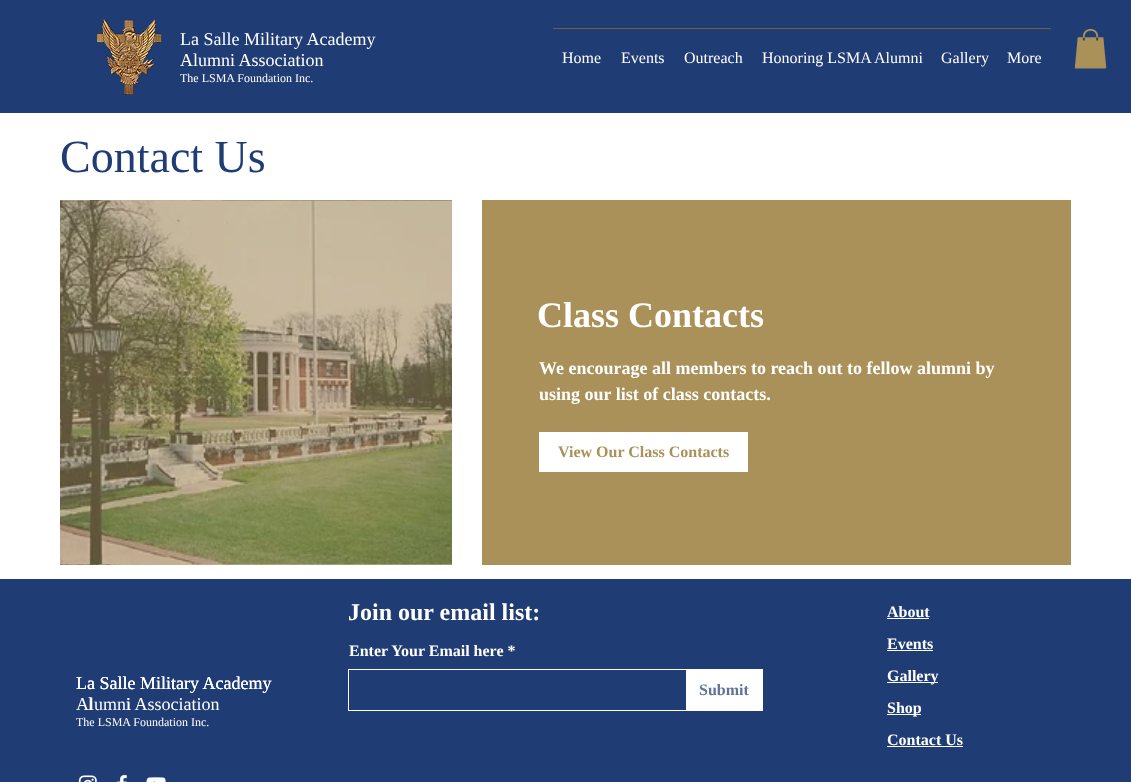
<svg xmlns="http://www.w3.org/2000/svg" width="1131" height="782">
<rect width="100%" height="100%" fill="#fff"/>
<rect width="1131" height="113" fill="#203c74"/>
<image x="96" y="19" width="66" height="76" href="media/1.png"/>
<text x="180" y="45" style="font-family:Liberation Serif;font-size:18px;fill:#fff">La Salle Military Academy</text>
<text x="180" y="66" style="font-family:Liberation Serif;font-size:18px;fill:#fff">Alumni Association</text>
<text x="180" y="82" style="font-family:Liberation Serif;font-size:12px;fill:#fff">The LSMA Foundation Inc.</text>
<rect x="553" y="28" width="498" height="1" fill="#71603b"/>
<text x="562" y="63" style="font-family:Liberation Serif;font-size:16px;fill:#fff">Home</text>
<text x="621" y="63" style="font-family:Liberation Serif;font-size:16px;fill:#fff">Events</text>
<text x="684" y="63" style="font-family:Liberation Serif;font-size:16px;fill:#fff">Outreach</text>
<text x="762" y="63" style="font-family:Liberation Serif;font-size:16px;fill:#fff">Honoring LSMA Alumni</text>
<text x="941" y="63" style="font-family:Liberation Serif;font-size:16px;fill:#fff">Gallery</text>
<text x="1007" y="63" style="font-family:Liberation Serif;font-size:16px;fill:#fff">More</text>
<image x="1074" y="29" width="33" height="40" href="media/2.png"/>
<text x="60" y="172" style="font-family:Liberation Serif;font-size:46px;fill:#203c74">Contact Us</text>
<rect x="60" y="200" width="392" height="365" fill="#aa9059"/>
<image x="60" y="200" width="392" height="365" href="media/3.png"/>
<rect x="482" y="200" width="589" height="365" fill="#aa9059"/>
<text x="537" y="327" style="font-family:Liberation Serif;font-size:36px;font-weight:bold;fill:#fff">Class Contacts</text>
<text x="539" y="374" style="font-family:Liberation Serif;font-size:18px;font-weight:bold;fill:#fff">We encourage all members to reach out to fellow alumni by</text>
<text x="539" y="400" style="font-family:Liberation Serif;font-size:18px;font-weight:bold;fill:#fff">using our list of class contacts.</text>
<rect x="539" y="432" width="209" height="40" fill="#fff"/>
<text x="558" y="457" style="font-family:Liberation Serif;font-size:16px;font-weight:bold;fill:#aa9059">View Our Class Contacts</text>
<rect y="579" width="1131" height="203" fill="#203c74"/>
<text x="348" y="620" style="font-family:Liberation Serif;font-size:24px;font-weight:bold;fill:#fff">Join our email list:</text>
<text x="887" y="617" style="font-family:Liberation Serif;font-size:16px;font-weight:bold;fill:#fff">About</text>
<rect x="887" y="618" width="42" height="1" fill="#fff"/>
<text x="887" y="649" style="font-family:Liberation Serif;font-size:16px;font-weight:bold;fill:#fff">Events</text>
<rect x="887" y="650" width="46" height="1" fill="#fff"/>
<rect x="887" y="682" width="51" height="1" fill="#fff"/>
<text x="887" y="681" style="font-family:Liberation Serif;font-size:16px;font-weight:bold;fill:#fff">Gallery</text>
<rect x="887" y="714" width="34" height="1" fill="#fff"/>
<text x="887" y="713" style="font-family:Liberation Serif;font-size:16px;font-weight:bold;fill:#fff">Shop</text>
<text x="887" y="745" style="font-family:Liberation Serif;font-size:16px;font-weight:bold;fill:#fff">Contact Us</text>
<rect x="887" y="746" width="76" height="1" fill="#fff"/>
<text x="76" y="689" style="font-family:Liberation Serif;font-size:18px;fill:#fff">La Salle Military Academy</text>
<text x="76" y="710" style="font-family:Liberation Serif;font-size:18px;fill:#fff">Alumni Association</text>
<text x="349" y="656" style="font-family:Liberation Serif;font-size:16px;font-weight:bold;fill:#fff">Enter Your Email here *</text>
<rect x="348.5" y="669.5" width="414" height="41" fill="none" stroke="#fff"/>
<rect x="686" y="670" width="76" height="40" fill="#fff"/>
<text x="699" y="695" style="font-family:Liberation Serif;font-size:16px;font-weight:bold;fill:#607297">Submit</text>
<text x="76" y="689" style="font-family:Liberation Serif;font-size:18px;fill:#fff">La Salle Military Academy</text>
<text x="88" y="710" style="font-family:Liberation Serif;font-size:18px;fill:#fff">l</text>
<text x="126" y="710" style="font-family:Liberation Serif;font-size:18px;fill:#fff">i</text>
<text x="76" y="726" style="font-family:Liberation Serif;font-size:12px;fill:#fff">The LSMA Foundation Inc.</text>
<image x="78" y="775" width="19" height="7" href="media/4.png"/>
<image x="117" y="774" width="10" height="8" href="media/5.png"/>
<image x="146" y="777" width="20" height="5" href="media/6.png"/>
</svg>
